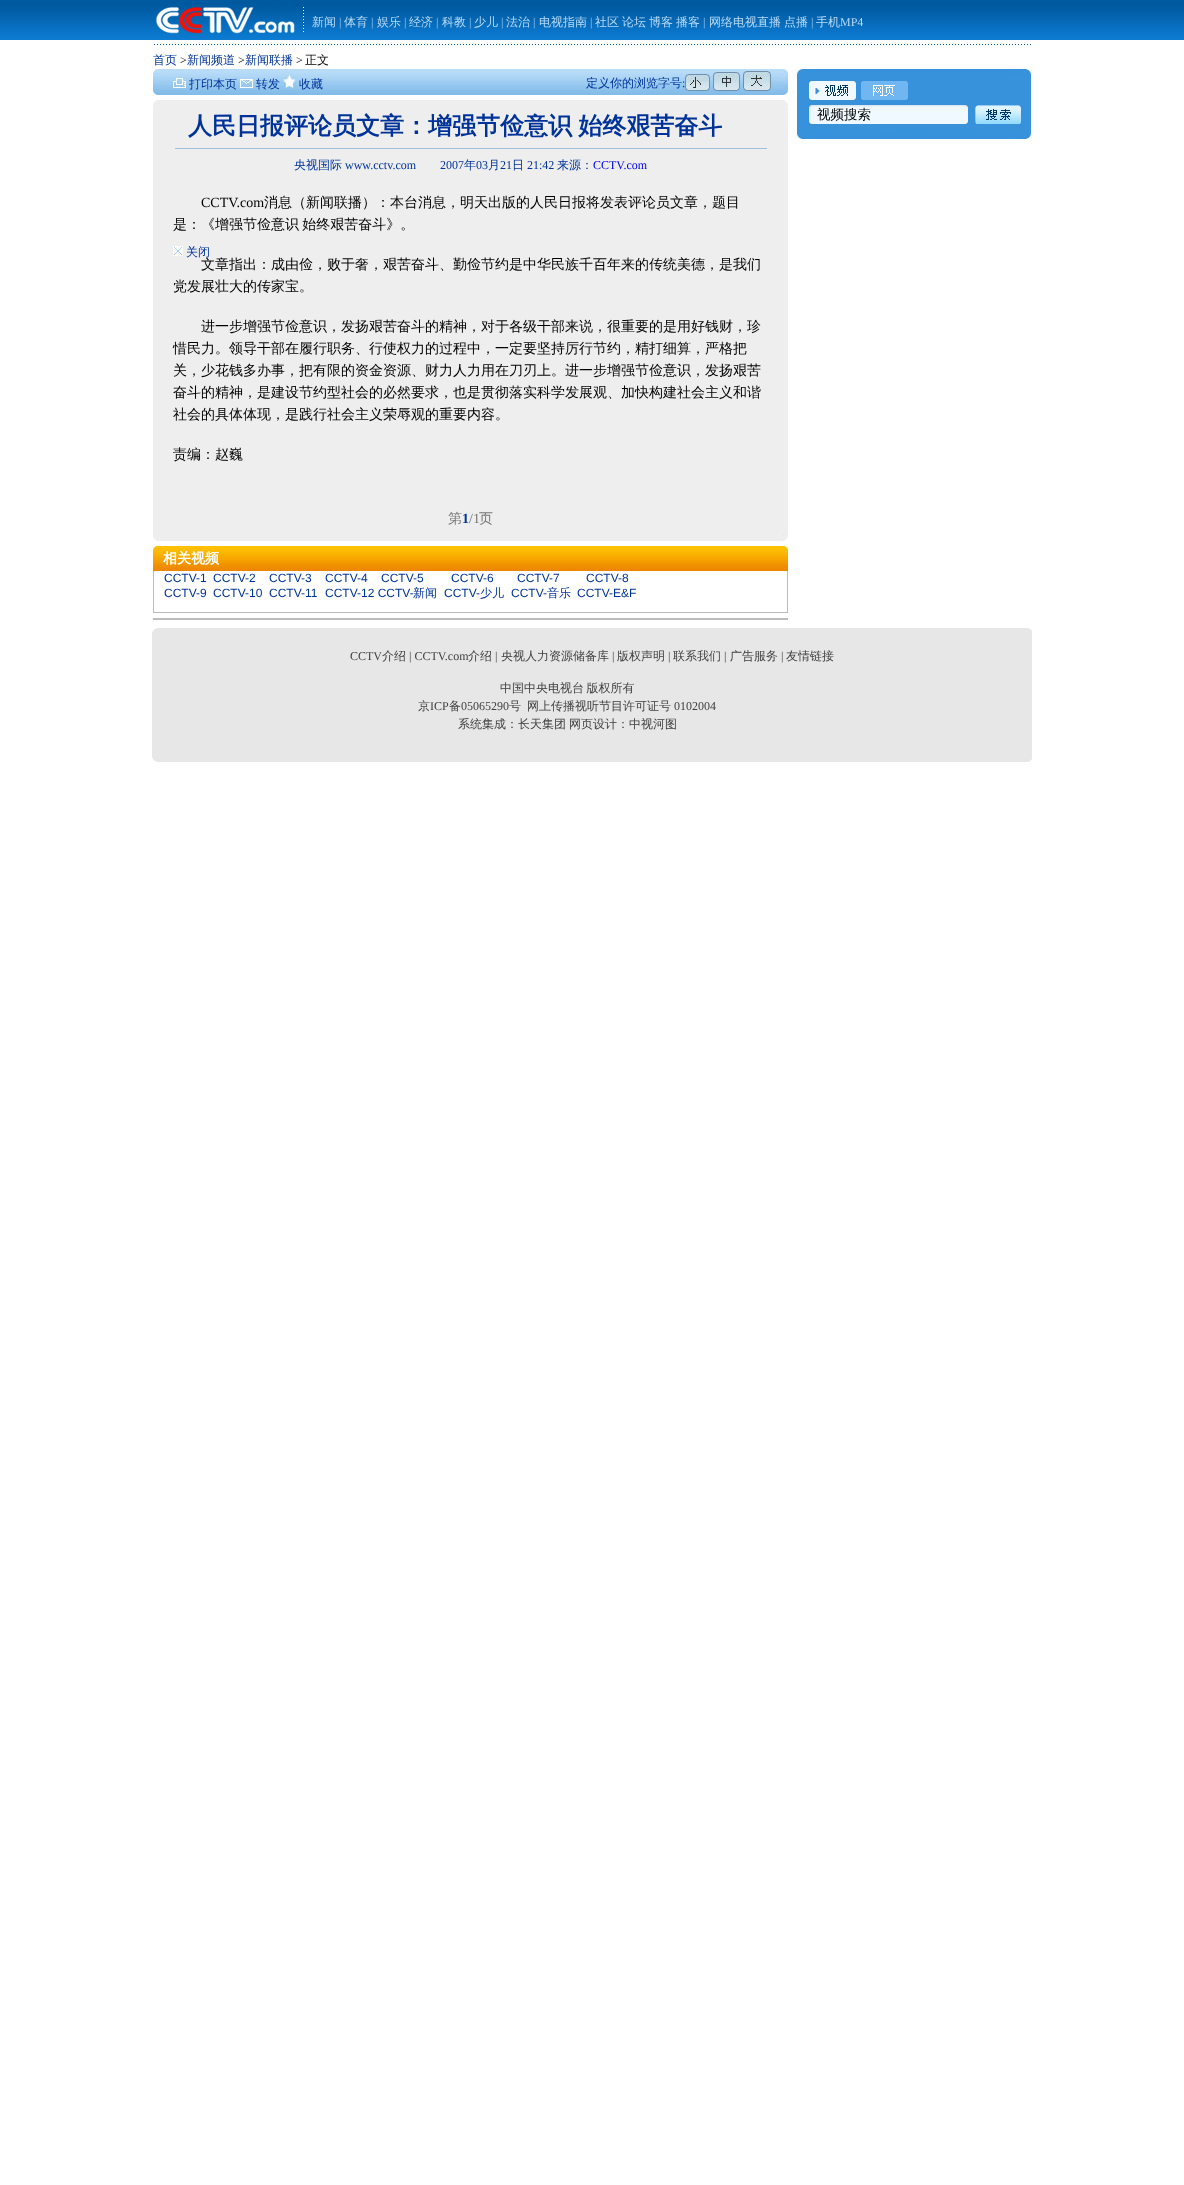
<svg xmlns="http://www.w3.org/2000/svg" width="1184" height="2185">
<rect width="100%" height="100%" fill="#fff"/>
<image x="0" y="0" width="1184" height="40" href="media/1.png"/>
<image x="155" y="2" width="142" height="37" href="media/2.png"/>
<image x="303" y="7" width="1" height="25" href="media/3.png"/>
<text x="312" y="26" style="font-family:WenQuanYi Zen Hei;font-size:12px;font-weight:500;fill:#b8dbf7">新闻</text>
<text x="339" y="26" style="font-family:Liberation Serif;font-size:12px;fill:#9acaf0">|</text>
<text x="344" y="26" style="font-family:WenQuanYi Zen Hei;font-size:12px;font-weight:500;fill:#b8dbf7">体育</text>
<text x="371" y="26" style="font-family:Liberation Serif;font-size:12px;fill:#9acaf0">|</text>
<text x="377" y="26" style="font-family:WenQuanYi Zen Hei;font-size:12px;font-weight:500;fill:#b8dbf7">娱乐</text>
<text x="404" y="26" style="font-family:Liberation Serif;font-size:12px;fill:#9acaf0">|</text>
<text x="409" y="26" style="font-family:WenQuanYi Zen Hei;font-size:12px;font-weight:500;fill:#b8dbf7">经济</text>
<text x="436" y="26" style="font-family:Liberation Serif;font-size:12px;fill:#9acaf0">|</text>
<text x="442" y="26" style="font-family:WenQuanYi Zen Hei;font-size:12px;font-weight:500;fill:#b8dbf7">科教</text>
<text x="469" y="26" style="font-family:Liberation Serif;font-size:12px;fill:#9acaf0">|</text>
<text x="474" y="26" style="font-family:WenQuanYi Zen Hei;font-size:12px;font-weight:500;fill:#b8dbf7">少儿</text>
<text x="501" y="26" style="font-family:Liberation Serif;font-size:12px;fill:#9acaf0">|</text>
<text x="506" y="26" style="font-family:WenQuanYi Zen Hei;font-size:12px;font-weight:500;fill:#b8dbf7">法治</text>
<text x="533" y="26" style="font-family:Liberation Serif;font-size:12px;fill:#9acaf0">|</text>
<text x="539" y="26" style="font-family:WenQuanYi Zen Hei;font-size:12px;font-weight:500;fill:#b8dbf7">电视指南</text>
<text x="590" y="26" style="font-family:Liberation Serif;font-size:12px;fill:#9acaf0">|</text>
<text x="595" y="26" style="font-family:WenQuanYi Zen Hei;font-size:12px;font-weight:500;fill:#b8dbf7">社区</text>
<text x="622" y="26" style="font-family:WenQuanYi Zen Hei;font-size:12px;font-weight:500;fill:#b8dbf7">论坛</text>
<text x="649" y="26" style="font-family:WenQuanYi Zen Hei;font-size:12px;font-weight:500;fill:#b8dbf7">博客</text>
<text x="676" y="26" style="font-family:WenQuanYi Zen Hei;font-size:12px;font-weight:500;fill:#b8dbf7">播客</text>
<text x="703" y="26" style="font-family:Liberation Serif;font-size:12px;fill:#9acaf0">|</text>
<text x="709" y="26" style="font-family:WenQuanYi Zen Hei;font-size:12px;font-weight:500;fill:#b8dbf7">网络电视直播</text>
<text x="784" y="26" style="font-family:WenQuanYi Zen Hei;font-size:12px;font-weight:500;fill:#b8dbf7">点播</text>
<text x="811" y="26" style="font-family:Liberation Serif;font-size:12px;fill:#9acaf0">|</text>
<text x="816" y="26" style="font-family:WenQuanYi Zen Hei;font-size:12px;font-weight:500;fill:#b8dbf7">手机</text>
<text x="840" y="26" style="font-family:Liberation Serif;font-size:12px;fill:#b8dbf7">MP4</text>
<image x="154" y="44" width="877" height="1" href="media/4.png"/>
<text x="153" y="64" style="font-family:WenQuanYi Zen Hei;font-size:12px;font-weight:500;fill:#039">首页</text>
<text x="180" y="64" style="font-family:Liberation Serif;font-size:12px;fill:#000">&gt;</text>
<text x="187" y="64" style="font-family:WenQuanYi Zen Hei;font-size:12px;font-weight:500;fill:#039">新闻频道</text>
<text x="238" y="64" style="font-family:Liberation Serif;font-size:12px;fill:#000">&gt;</text>
<text x="245" y="64" style="font-family:WenQuanYi Zen Hei;font-size:12px;font-weight:500;fill:#039">新闻联播</text>
<text x="296" y="64" style="font-family:Liberation Serif;font-size:12px;fill:#000">&gt;</text>
<text x="305" y="64" style="font-family:WenQuanYi Zen Hei;font-size:12px;font-weight:500;fill:#000">正文</text>
<image x="158" y="69" width="625" height="26" href="media/5.png"/>
<image x="153" y="69" width="5" height="26" href="media/6.png"/>
<image x="173" y="78" width="13" height="10" href="media/7.png"/>
<text x="189" y="88" style="font-family:WenQuanYi Zen Hei;font-size:12px;font-weight:500;fill:#039">打印本页</text>
<image x="240" y="79" width="13" height="9" href="media/8.png"/>
<text x="256" y="88" style="font-family:WenQuanYi Zen Hei;font-size:12px;font-weight:500;fill:#039">转发</text>
<image x="283" y="75" width="13" height="13" href="media/9.png"/>
<text x="299" y="88" style="font-family:WenQuanYi Zen Hei;font-size:12px;font-weight:500;fill:#039">收藏</text>
<rect x="153" y="100" width="635" height="441" fill="#eee"/>
<image x="173" y="246" width="10" height="10" href="media/10.png"/>
<text x="186" y="256" style="font-family:WenQuanYi Zen Hei;font-size:12px;font-weight:500;fill:#039">关闭</text>
<image x="783" y="69" width="5" height="26" href="media/11.png"/>
<text x="586" y="87" style="font-family:WenQuanYi Zen Hei;font-size:12px;font-weight:500;fill:#039">定义你的浏览字号</text>
<text x="682" y="87" style="font-family:Liberation Serif;font-size:12px;fill:#039">:</text>
<image x="685" y="74" width="25" height="17" href="media/12.png"/>
<image x="713" y="72" width="27" height="19" href="media/13.png"/>
<image x="743" y="71" width="28" height="20" href="media/14.png"/>
<image x="153" y="100" width="7" height="7" href="media/15.png"/>
<image x="784" y="100" width="4" height="7" href="media/16.png"/>
<text x="188" y="134" word-spacing="-1" style="font-family:WenQuanYi Zen Hei;font-size:24px;font-weight:bold;fill:#039">人民日报评论员文章：增强节俭意识 始终艰苦奋斗</text>
<rect x="175" y="148" width="592" height="1" fill="#a1bed4"/>
<text x="294" y="169" style="font-family:WenQuanYi Zen Hei;font-size:12px;font-weight:500;fill:#039">央视国际</text>
<text x="345" y="169" style="font-family:Liberation Serif;font-size:12px;fill:#039">www.cctv.com</text>
<text x="440" y="169" style="font-family:Liberation Serif;font-size:12px;fill:#039">2007</text>
<text x="464" y="169" style="font-family:WenQuanYi Zen Hei;font-size:12px;font-weight:500;fill:#039">年</text>
<text x="476" y="169" style="font-family:Liberation Serif;font-size:12px;fill:#039">03</text>
<text x="488" y="169" style="font-family:WenQuanYi Zen Hei;font-size:12px;font-weight:500;fill:#039">月</text>
<text x="500" y="169" style="font-family:Liberation Serif;font-size:12px;fill:#039">21</text>
<text x="512" y="169" style="font-family:WenQuanYi Zen Hei;font-size:12px;font-weight:500;fill:#039">日</text>
<text x="527" y="169" style="font-family:Liberation Serif;font-size:12px;fill:#039">21:42</text>
<text x="557" y="169" style="font-family:WenQuanYi Zen Hei;font-size:12px;font-weight:500;fill:#039">来源：</text>
<text x="593" y="169" style="font-family:Liberation Serif;font-size:12px;fill:#00e">CCTV.com</text>
<text x="201" y="207" style="font-family:Liberation Serif;font-size:14px;fill:#000">CCTV.com</text>
<text x="264" y="207" style="font-family:WenQuanYi Zen Hei;font-size:14px;font-weight:500;fill:#000">消息（新闻联播）：本台消息，明天出版的人民日报将发表评论员文章，题目</text>
<text x="173" y="229" word-spacing="-1" style="font-family:WenQuanYi Zen Hei;font-size:14px;font-weight:500;fill:#000">是：《增强节俭意识 始终艰苦奋斗》。</text>
<text x="201" y="269" style="font-family:WenQuanYi Zen Hei;font-size:14px;font-weight:500;fill:#000">文章指出：成由俭，败于奢，艰苦奋斗、勤俭节约是中华民族千百年来的传统美德，是我们</text>
<text x="173" y="291" style="font-family:WenQuanYi Zen Hei;font-size:14px;font-weight:500;fill:#000">党发展壮大的传家宝。</text>
<text x="201" y="331" style="font-family:WenQuanYi Zen Hei;font-size:14px;font-weight:500;fill:#000">进一步增强节俭意识，发扬艰苦奋斗的精神，对于各级干部来说，很重要的是用好钱财，珍</text>
<text x="173" y="353" style="font-family:WenQuanYi Zen Hei;font-size:14px;font-weight:500;fill:#000">惜民力。领导干部在履行职务、行使权力的过程中，一定要坚持厉行节约，精打细算，严格把</text>
<text x="173" y="375" style="font-family:WenQuanYi Zen Hei;font-size:14px;font-weight:500;fill:#000">关，少花钱多办事，把有限的资金资源、财力人力用在刀刃上。进一步增强节俭意识，发扬艰苦</text>
<text x="173" y="397" style="font-family:WenQuanYi Zen Hei;font-size:14px;font-weight:500;fill:#000">奋斗的精神，是建设节约型社会的必然要求，也是贯彻落实科学发展观、加快构建社会主义和谐</text>
<text x="173" y="419" style="font-family:WenQuanYi Zen Hei;font-size:14px;font-weight:500;fill:#000">社会的具体体现，是践行社会主义荣辱观的重要内容。</text>
<text x="173" y="459" style="font-family:WenQuanYi Zen Hei;font-size:14px;font-weight:500;fill:#000">责编：赵巍</text>
<text x="448" y="523" style="font-family:WenQuanYi Zen Hei;font-size:14px;font-weight:500;fill:#777">第</text>
<text x="462" y="523" style="font-family:Liberation Serif;font-size:14px;font-weight:bold;fill:#039">1</text>
<text x="469" y="523" style="font-family:Liberation Serif;font-size:14px;fill:#777">/1</text>
<text x="479" y="523" style="font-family:WenQuanYi Zen Hei;font-size:14px;font-weight:500;fill:#777">页</text>
<image x="153" y="537" width="7" height="4" href="media/17.png"/>
<image x="781" y="534" width="7" height="7" href="media/18.png"/>
<image x="153" y="546" width="635" height="25" href="media/19.png"/>
<image x="783" y="546" width="5" height="8" href="media/20.png"/>
<image x="153" y="546" width="5" height="8" href="media/21.png"/>
<text x="163" y="563" style="font-family:WenQuanYi Zen Hei;font-size:14px;font-weight:bold;fill:#fff">相关视频</text>
<rect x="787" y="571" width="1" height="42" fill="#bcbcbc"/>
<rect x="153" y="612" width="635" height="1" fill="#bcbcbc"/>
<rect x="153" y="571" width="1" height="42" fill="#bcbcbc"/>
<text x="164" y="582" style="font-family:Liberation Sans;font-size:12px;fill:#039">CCTV-1</text>
<text x="213" y="582" style="font-family:Liberation Sans;font-size:12px;fill:#039">CCTV-2</text>
<text x="269" y="582" style="font-family:Liberation Sans;font-size:12px;fill:#039">CCTV-3</text>
<text x="325" y="582" style="font-family:Liberation Sans;font-size:12px;fill:#039">CCTV-4</text>
<text x="381" y="582" style="font-family:Liberation Sans;font-size:12px;fill:#039">CCTV-5</text>
<text x="451" y="582" style="font-family:Liberation Sans;font-size:12px;fill:#039">CCTV-6</text>
<text x="517" y="582" style="font-family:Liberation Sans;font-size:12px;fill:#039">CCTV-7</text>
<text x="586" y="582" style="font-family:Liberation Sans;font-size:12px;fill:#039">CCTV-8</text>
<text x="164" y="597" style="font-family:Liberation Sans;font-size:12px;fill:#039">CCTV-9</text>
<text x="213" y="597" style="font-family:Liberation Sans;font-size:12px;fill:#039">CCTV-10</text>
<text x="269" y="597" style="font-family:Liberation Sans;font-size:12px;fill:#039">CCTV-11</text>
<text x="325" y="597" style="font-family:Liberation Sans;font-size:12px;fill:#039">CCTV-12 CCTV-</text>
<text x="413" y="597" style="font-family:WenQuanYi Zen Hei;font-size:12px;font-weight:500;fill:#039">新闻</text>
<text x="444" y="597" style="font-family:Liberation Sans;font-size:12px;fill:#039">CCTV-</text>
<text x="480" y="597" style="font-family:WenQuanYi Zen Hei;font-size:12px;font-weight:500;fill:#039">少儿</text>
<text x="511" y="597" style="font-family:Liberation Sans;font-size:12px;fill:#039">CCTV-</text>
<text x="547" y="597" style="font-family:WenQuanYi Zen Hei;font-size:12px;font-weight:500;fill:#039">音乐</text>
<text x="577" y="597" style="font-family:Liberation Sans;font-size:12px;fill:#039">CCTV-E&amp;F</text>
<rect x="153" y="618" width="635" height="2" fill="#bcbcbc"/>
<image x="797" y="69" width="234" height="70" href="media/22.png"/>
<image x="809" y="81" width="47" height="19" href="media/23.png"/>
<image x="861" y="81" width="47" height="19" href="media/24.png"/>
<image x="809" y="105" width="159" height="19" href="media/25.png"/>
<text x="817" y="119" style="font-family:WenQuanYi Zen Hei;font-size:13.5px;font-weight:500;fill:#000">视频搜索</text>
<image x="975" y="105" width="46" height="19" href="media/26.png"/>
<image x="152" y="628" width="880" height="134" href="media/27.png"/>
<text x="350" y="660" style="font-family:Liberation Serif;font-size:12px;fill:#404040">CCTV</text>
<text x="382" y="660" style="font-family:WenQuanYi Zen Hei;font-size:12px;font-weight:500;fill:#404040">介绍</text>
<text x="409" y="660" style="font-family:Liberation Serif;font-size:12px;fill:#404040">| CCTV.com</text>
<text x="468" y="660" style="font-family:WenQuanYi Zen Hei;font-size:12px;font-weight:500;fill:#404040">介绍</text>
<text x="495" y="660" style="font-family:Liberation Serif;font-size:12px;fill:#404040">|</text>
<text x="501" y="660" style="font-family:WenQuanYi Zen Hei;font-size:12px;font-weight:500;fill:#404040">央视人力资源储备库</text>
<text x="612" y="660" style="font-family:Liberation Serif;font-size:12px;fill:#404040">|</text>
<text x="617" y="660" style="font-family:WenQuanYi Zen Hei;font-size:12px;font-weight:500;fill:#404040">版权声明</text>
<text x="668" y="660" style="font-family:Liberation Serif;font-size:12px;fill:#404040">|</text>
<text x="673" y="660" style="font-family:WenQuanYi Zen Hei;font-size:12px;font-weight:500;fill:#404040">联系我们</text>
<text x="724" y="660" style="font-family:Liberation Serif;font-size:12px;fill:#404040">|</text>
<text x="730" y="660" style="font-family:WenQuanYi Zen Hei;font-size:12px;font-weight:500;fill:#404040">广告服务</text>
<text x="781" y="660" style="font-family:Liberation Serif;font-size:12px;fill:#404040">|</text>
<text x="786" y="660" style="font-family:WenQuanYi Zen Hei;font-size:12px;font-weight:500;fill:#404040">友情链接</text>
<text x="500" y="692" word-spacing="-1" style="font-family:WenQuanYi Zen Hei;font-size:12px;font-weight:500;fill:#404040">中国中央电视台 版权所有</text>
<text x="418" y="710" style="font-family:WenQuanYi Zen Hei;font-size:12px;font-weight:500;fill:#404040">京</text>
<text x="430" y="710" style="font-family:Liberation Serif;font-size:12px;fill:#404040">ICP</text>
<text x="449" y="710" style="font-family:WenQuanYi Zen Hei;font-size:12px;font-weight:500;fill:#404040">备</text>
<text x="461" y="710" style="font-family:Liberation Serif;font-size:12px;fill:#404040">05065290</text>
<text x="509" y="710" style="font-family:WenQuanYi Zen Hei;font-size:12px;font-weight:500;fill:#404040">号</text>
<text x="527" y="710" style="font-family:WenQuanYi Zen Hei;font-size:12px;font-weight:500;fill:#404040">网上传播视听节目许可证号</text>
<text x="674" y="710" style="font-family:Liberation Serif;font-size:12px;fill:#404040">0102004</text>
<text x="458" y="728" style="font-family:WenQuanYi Zen Hei;font-size:12px;font-weight:500;fill:#404040">系统集成：长天集团</text>
<text x="569" y="728" style="font-family:WenQuanYi Zen Hei;font-size:12px;font-weight:500;fill:#404040">网页设计：中视河图</text>
</svg>
